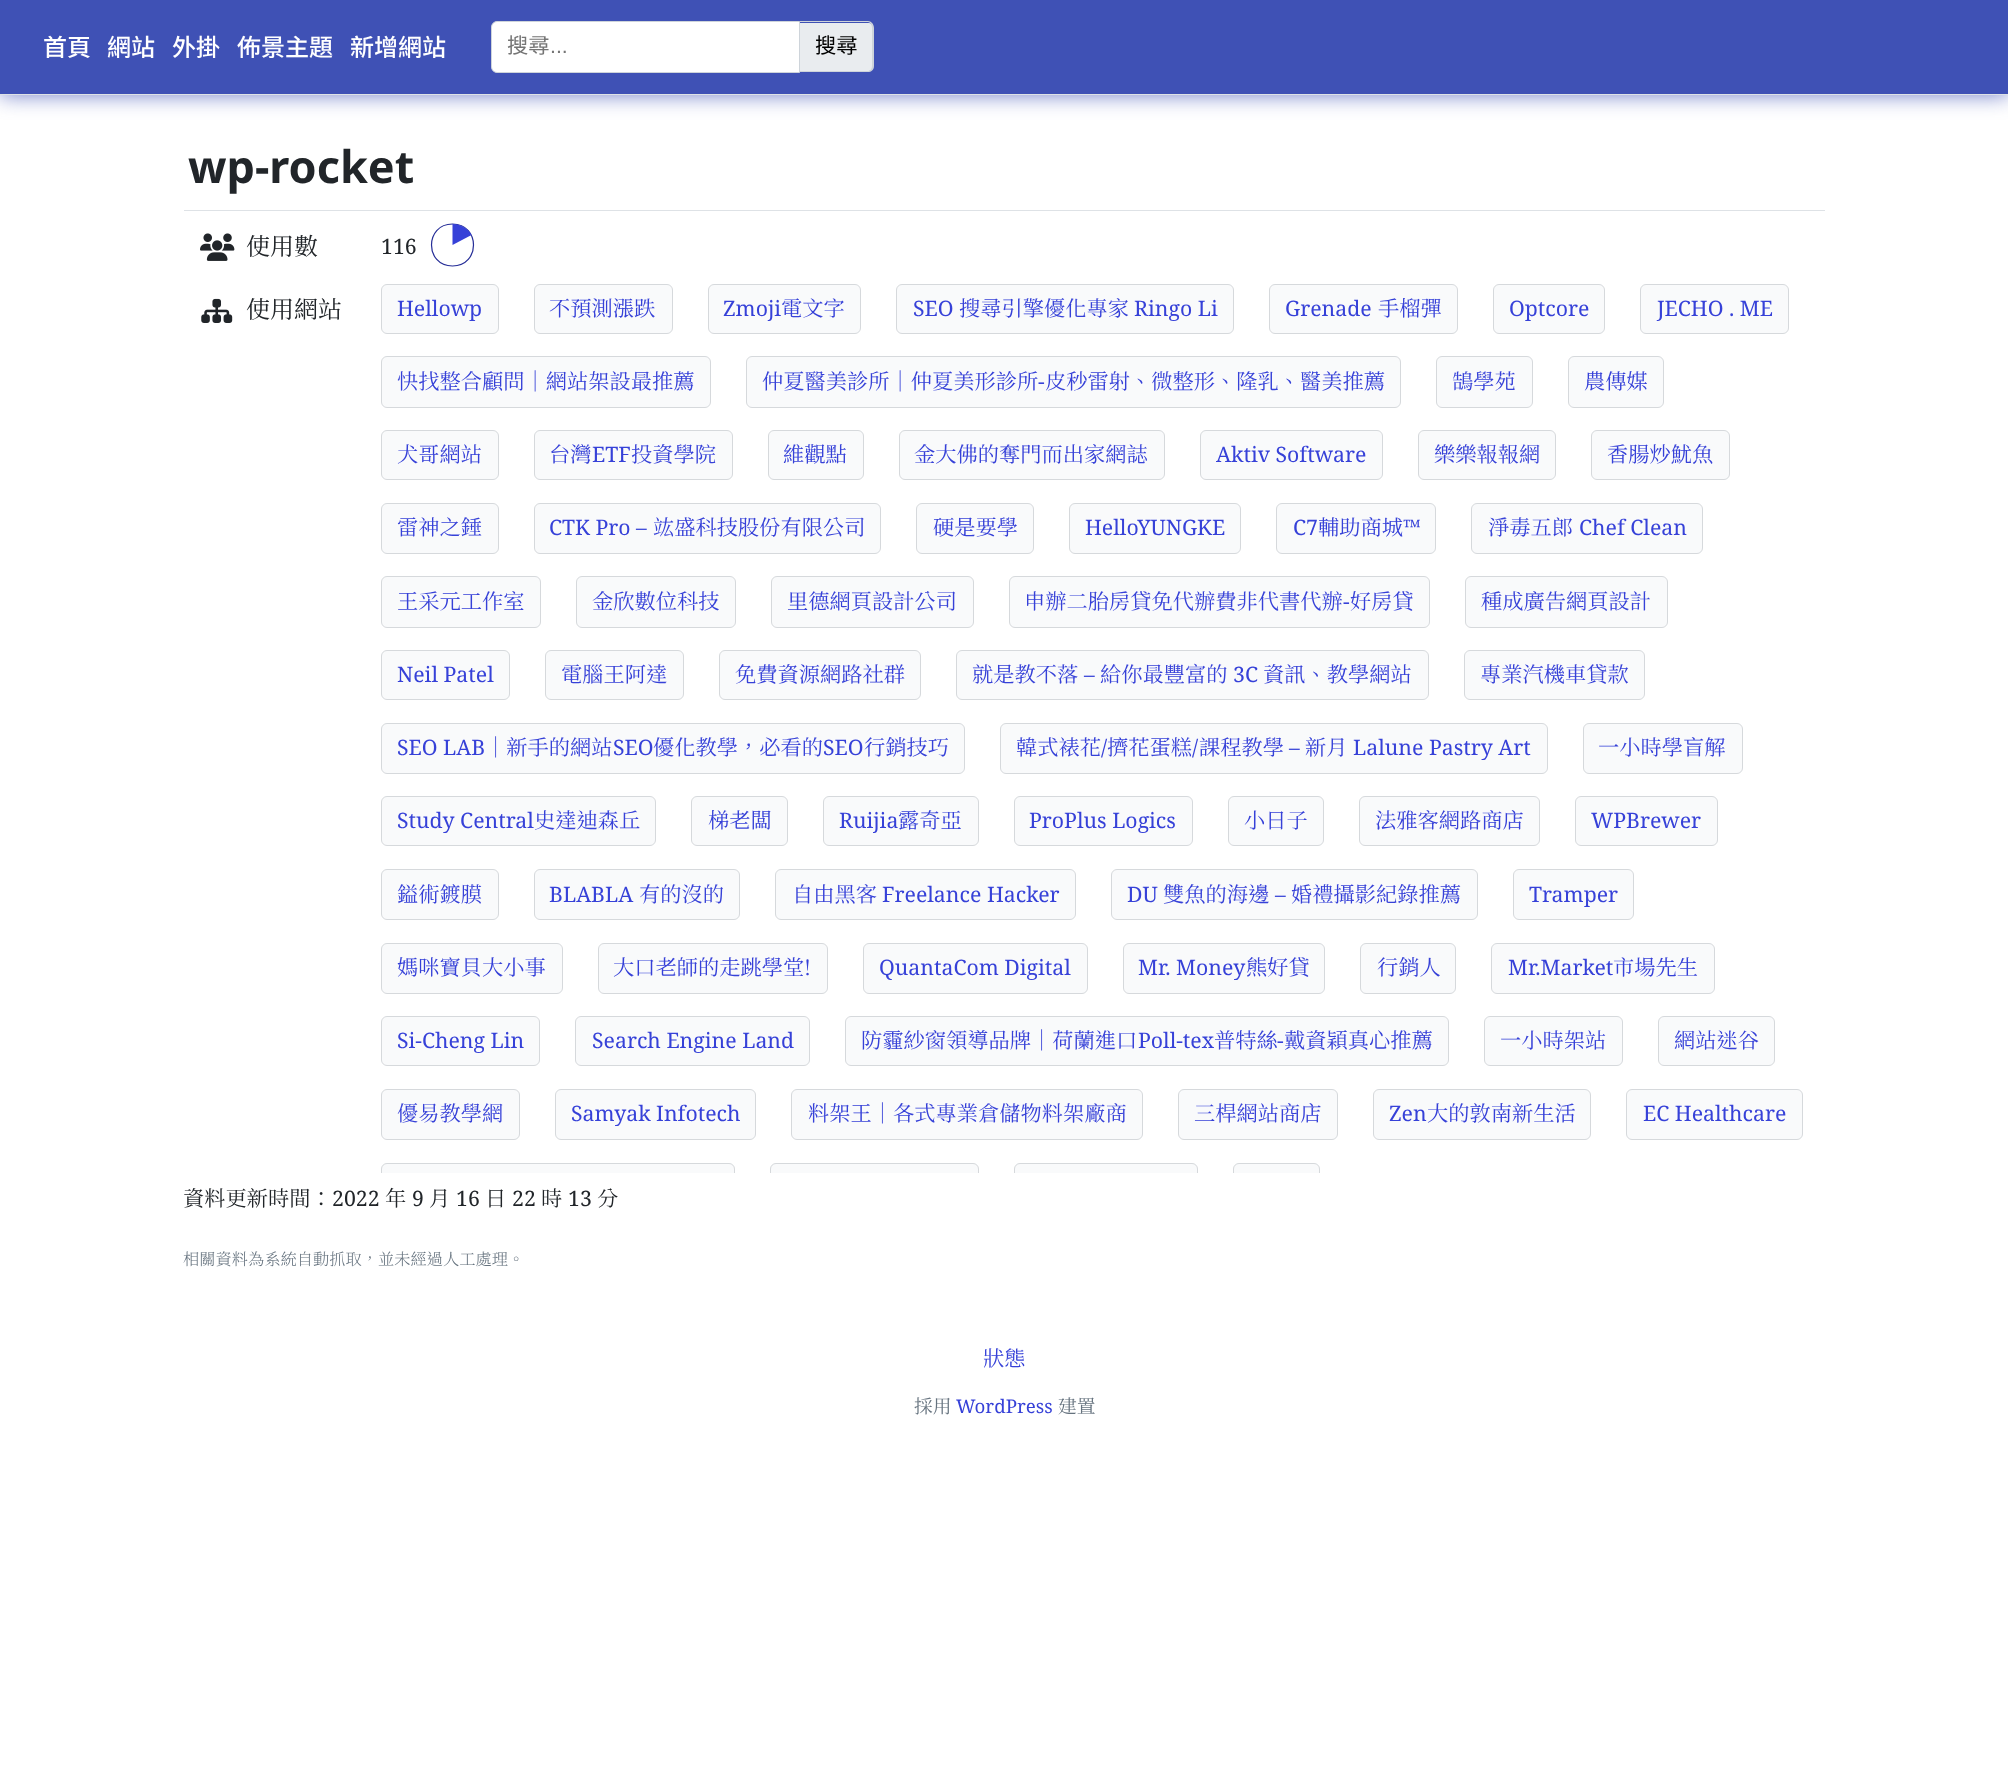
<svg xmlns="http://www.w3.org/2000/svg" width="2008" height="1777">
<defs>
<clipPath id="clip1"><rect x="364" y="284" width="1467" height="889"/></clipPath>
</defs>
<rect width="100%" height="100%" fill="#fff"/>
<rect width="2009" height="95" fill="#3f51b5bf" filter="blur(10.5px)"/>
<rect width="2008" height="94" fill="#3f51b5"/>
<rect y="94" width="2008" height="1" fill="#dee2e6"/>
<text x="43" y="56" style="font-family:Noto Sans TC;font-size:24px;font-weight:500;fill:#fff">首頁</text>
<text x="107" y="56" style="font-family:Noto Sans TC;font-size:24px;font-weight:500;fill:#fff">網站</text>
<text x="172" y="56" style="font-family:Noto Sans TC;font-size:24px;font-weight:500;fill:#fff">外掛</text>
<text x="237" y="56" style="font-family:Noto Sans TC;font-size:24px;font-weight:500;fill:#fff">佈景主題</text>
<text x="350" y="56" style="font-family:Noto Sans TC;font-size:24px;font-weight:500;fill:#fff">新增網站</text>
<path d="M497 21.5h302.5v51h-302.5c-3 0-5.5-2.5-5.5-5.5v-40c0-3 2.5-5.5 5.5-5.5z" fill="#fff" stroke="#ced4da"/>
<text x="507" y="53" style="font-family:Noto Sans CJK TC;font-size:21.25px;fill:#757575">搜尋</text>
<text x="550" y="53" style="font-family:Liberation Sans;font-size:21.25px;fill:#757575">...</text>
<path d="M800 23h68c3 0 5 2 5 5v38c0 3-2 5-5 5h-68z" fill="#e9ecef"/>
<path d="M800 21h68c3 0 6 3 6 7v38c0 4-3 6-6 6h-68zm0 1h68c2 0 4 3 4 6v38c0 3-2 5-4 5h-68z" fill="#ced4da" fill-rule="evenodd"/>
<text x="815" y="53" style="font-family:Noto Sans CJK TC;font-size:21.25px;fill:#000">搜尋</text>
<rect x="184" y="210" width="1641" height="1" fill="#dee2e6"/>
<text x="188" y="183" style="font-family:Noto Sans;font-size:45px;font-weight:bold;fill:#212529">wp-rocket</text>
<image x="200" y="233" width="35" height="28" href="media/1.png"/>
<text x="246" y="255" style="font-family:Noto Serif TC;font-size:24px;fill:#212529">使用數</text>
<text x="381" y="254" style="font-family:Noto Serif;font-size:21.25px;fill:#212529">116</text>
<path d="M452.5 224c28 0 28 42 0 42c-28 0-28-42 0-42z" fill="none" stroke="#252d97" stroke-width="1.2"/>
<path d="M452.5 224c8 0 15 4 19 11l-19 10z" fill="#3641d8"/>
<image x="201" y="298" width="32" height="25" href="media/2.png"/>
<text x="246" y="318" style="font-family:Noto Serif TC;font-size:24px;fill:#212529">使用網站</text>
<rect x="381.5" y="284.5" width="117" height="49" rx="5.5" fill="#f9fafb" stroke="#d6d9dc"/>
<text x="397" y="316" style="font-family:Noto Serif;font-size:21.25px;fill:#3641d8">Hellowp</text>
<rect x="534.5" y="284.5" width="138" height="49" rx="5.5" fill="#f9fafb" stroke="#d6d9dc"/>
<text x="549" y="316" style="font-family:Noto Serif TC;font-size:21.25px;fill:#3641d8">不預測漲跌</text>
<rect x="708.5" y="284.5" width="152" height="49" rx="5.5" fill="#f9fafb" stroke="#d6d9dc"/>
<text x="723" y="316" style="font-family:Noto Serif;font-size:21.25px;fill:#3641d8">Zmoji</text>
<text x="781" y="316" style="font-family:Noto Serif TC;font-size:21.25px;fill:#3641d8">電文字</text>
<rect x="896.5" y="284.5" width="337" height="49" rx="5.5" fill="#f9fafb" stroke="#d6d9dc"/>
<text x="913" y="316" style="font-family:Noto Serif;font-size:21.25px;fill:#3641d8">SEO</text>
<text x="959" y="316" style="font-family:Noto Serif TC;font-size:21.25px;fill:#3641d8">搜尋引擎優化專家</text>
<text x="1134" y="316" style="font-family:Noto Serif;font-size:21.25px;fill:#3641d8">Ringo Li</text>
<rect x="1269.5" y="284.5" width="188" height="49" rx="5.5" fill="#f9fafb" stroke="#d6d9dc"/>
<text x="1285" y="316" style="font-family:Noto Serif;font-size:21.25px;fill:#3641d8">Grenade</text>
<text x="1378" y="316" style="font-family:Noto Serif TC;font-size:21.25px;fill:#3641d8">手榴彈</text>
<rect x="1493.5" y="284.5" width="111" height="49" rx="5.5" fill="#f9fafb" stroke="#d6d9dc"/>
<text x="1509" y="316" style="font-family:Noto Serif;font-size:21.25px;fill:#3641d8">Optcore</text>
<rect x="1640.5" y="284.5" width="148" height="49" rx="5.5" fill="#f9fafb" stroke="#d6d9dc"/>
<text x="1657" y="316" style="font-family:Noto Serif;font-size:21.25px;fill:#3641d8">JECHO . ME</text>
<rect x="381.5" y="356.5" width="329" height="51" rx="5.5" fill="#f9fafb" stroke="#d6d9dc"/>
<text x="397" y="389" style="font-family:Noto Serif TC;font-size:21.25px;fill:#3641d8">快找整合顧問｜網站架設最推薦</text>
<rect x="746.5" y="356.5" width="654" height="51" rx="5.5" fill="#f9fafb" stroke="#d6d9dc"/>
<text x="762" y="389" style="font-family:Noto Serif TC;font-size:21.25px;fill:#3641d8">仲夏醫美診所│仲夏美形診所</text>
<text x="1038" y="389" style="font-family:Noto Serif;font-size:21.25px;fill:#3641d8">-</text>
<text x="1045" y="389" style="font-family:Noto Serif TC;font-size:21.25px;fill:#3641d8">皮秒雷射、微整形、隆乳、醫美推薦</text>
<rect x="1436.5" y="356.5" width="96" height="51" rx="5.5" fill="#f9fafb" stroke="#d6d9dc"/>
<text x="1452" y="389" style="font-family:Noto Serif TC;font-size:21.25px;fill:#3641d8">鵠學苑</text>
<rect x="1568.5" y="356.5" width="95" height="51" rx="5.5" fill="#f9fafb" stroke="#d6d9dc"/>
<text x="1584" y="389" style="font-family:Noto Serif TC;font-size:21.25px;fill:#3641d8">農傳媒</text>
<rect x="381.5" y="430.5" width="117" height="49" rx="5.5" fill="#f9fafb" stroke="#d6d9dc"/>
<text x="397" y="462" style="font-family:Noto Serif TC;font-size:21.25px;fill:#3641d8">犬哥網站</text>
<rect x="534.5" y="430.5" width="198" height="49" rx="5.5" fill="#f9fafb" stroke="#d6d9dc"/>
<text x="549" y="462" style="font-family:Noto Serif TC;font-size:21.25px;fill:#3641d8">台灣</text>
<text x="592" y="462" style="font-family:Noto Serif;font-size:21.25px;fill:#3641d8">ETF</text>
<text x="631" y="462" style="font-family:Noto Serif TC;font-size:21.25px;fill:#3641d8">投資學院</text>
<rect x="768.5" y="430.5" width="95" height="49" rx="5.5" fill="#f9fafb" stroke="#d6d9dc"/>
<text x="783" y="462" style="font-family:Noto Serif TC;font-size:21.25px;fill:#3641d8">維觀點</text>
<rect x="899.5" y="430.5" width="265" height="49" rx="5.5" fill="#f9fafb" stroke="#d6d9dc"/>
<text x="914" y="462" style="font-family:Noto Serif TC;font-size:21.25px;fill:#3641d8">金大佛的奪門而出家網誌</text>
<rect x="1200.5" y="430.5" width="182" height="49" rx="5.5" fill="#f9fafb" stroke="#d6d9dc"/>
<text x="1216" y="462" style="font-family:Noto Serif;font-size:21.25px;fill:#3641d8">Aktiv Software</text>
<rect x="1418.5" y="430.5" width="137" height="49" rx="5.5" fill="#f9fafb" stroke="#d6d9dc"/>
<text x="1434" y="462" style="font-family:Noto Serif TC;font-size:21.25px;fill:#3641d8">樂樂報報網</text>
<rect x="1591.5" y="430.5" width="138" height="49" rx="5.5" fill="#f9fafb" stroke="#d6d9dc"/>
<text x="1607" y="462" style="font-family:Noto Serif TC;font-size:21.25px;fill:#3641d8">香腸炒魷魚</text>
<rect x="381.5" y="503.5" width="117" height="50" rx="5.5" fill="#f9fafb" stroke="#d6d9dc"/>
<text x="397" y="535" style="font-family:Noto Serif TC;font-size:21.25px;fill:#3641d8">雷神之錘</text>
<rect x="534.5" y="503.5" width="346" height="50" rx="5.5" fill="#f9fafb" stroke="#d6d9dc"/>
<text x="549" y="535" style="font-family:Noto Serif;font-size:21.25px;fill:#3641d8">CTK Pro –</text>
<text x="653" y="535" style="font-family:Noto Serif TC;font-size:21.25px;fill:#3641d8">竑盛科技股份有限公司</text>
<rect x="916.5" y="503.5" width="117" height="50" rx="5.5" fill="#f9fafb" stroke="#d6d9dc"/>
<text x="933" y="535" style="font-family:Noto Serif TC;font-size:21.25px;fill:#3641d8">硬是要學</text>
<rect x="1069.5" y="503.5" width="171" height="50" rx="5.5" fill="#f9fafb" stroke="#d6d9dc"/>
<text x="1085" y="535" style="font-family:Noto Serif;font-size:21.25px;fill:#3641d8">HelloYUNGKE</text>
<rect x="1276.5" y="503.5" width="159" height="50" rx="5.5" fill="#f9fafb" stroke="#d6d9dc"/>
<text x="1293" y="535" style="font-family:Noto Serif;font-size:21.25px;fill:#3641d8">C7</text>
<text x="1318" y="535" style="font-family:Noto Serif TC;font-size:21.25px;fill:#3641d8">輔助商城</text>
<text x="1403" y="535" style="font-family:Noto Serif;font-size:21.25px;fill:#3641d8">™</text>
<rect x="1471.5" y="503.5" width="231" height="50" rx="5.5" fill="#f9fafb" stroke="#d6d9dc"/>
<text x="1488" y="535" style="font-family:Noto Serif TC;font-size:21.25px;fill:#3641d8">淨毒五郎</text>
<text x="1579" y="535" style="font-family:Noto Serif;font-size:21.25px;fill:#3641d8">Chef Clean</text>
<rect x="381.5" y="576.5" width="159" height="51" rx="5.5" fill="#f9fafb" stroke="#d6d9dc"/>
<text x="397" y="609" style="font-family:Noto Serif TC;font-size:21.25px;fill:#3641d8">王采元工作室</text>
<rect x="576.5" y="576.5" width="159" height="51" rx="5.5" fill="#f9fafb" stroke="#d6d9dc"/>
<text x="592" y="609" style="font-family:Noto Serif TC;font-size:21.25px;fill:#3641d8">金欣數位科技</text>
<rect x="771.5" y="576.5" width="202" height="51" rx="5.5" fill="#f9fafb" stroke="#d6d9dc"/>
<text x="787" y="609" style="font-family:Noto Serif TC;font-size:21.25px;fill:#3641d8">里德網頁設計公司</text>
<rect x="1009.5" y="576.5" width="420" height="51" rx="5.5" fill="#f9fafb" stroke="#d6d9dc"/>
<text x="1024" y="609" style="font-family:Noto Serif TC;font-size:21.25px;fill:#3641d8">申辦二胎房貸免代辦費非代書代辦</text>
<text x="1343" y="609" style="font-family:Noto Serif;font-size:21.25px;fill:#3641d8">-</text>
<text x="1350" y="609" style="font-family:Noto Serif TC;font-size:21.25px;fill:#3641d8">好房貸</text>
<rect x="1465.5" y="576.5" width="202" height="51" rx="5.5" fill="#f9fafb" stroke="#d6d9dc"/>
<text x="1481" y="609" style="font-family:Noto Serif TC;font-size:21.25px;fill:#3641d8">種成廣告網頁設計</text>
<rect x="381.5" y="650.5" width="128" height="49" rx="5.5" fill="#f9fafb" stroke="#d6d9dc"/>
<text x="397" y="682" style="font-family:Noto Serif;font-size:21.25px;fill:#3641d8">Neil Patel</text>
<rect x="545.5" y="650.5" width="138" height="49" rx="5.5" fill="#f9fafb" stroke="#d6d9dc"/>
<text x="561" y="682" style="font-family:Noto Serif TC;font-size:21.25px;fill:#3641d8">電腦王阿達</text>
<rect x="719.5" y="650.5" width="201" height="49" rx="5.5" fill="#f9fafb" stroke="#d6d9dc"/>
<text x="735" y="682" style="font-family:Noto Serif TC;font-size:21.25px;fill:#3641d8">免費資源網路社群</text>
<rect x="956.5" y="650.5" width="472" height="49" rx="5.5" fill="#f9fafb" stroke="#d6d9dc"/>
<text x="972" y="682" style="font-family:Noto Serif TC;font-size:21.25px;fill:#3641d8">就是教不落</text>
<text x="1084" y="682" style="font-family:Noto Serif;font-size:21.25px;fill:#3641d8">–</text>
<text x="1100" y="682" style="font-family:Noto Serif TC;font-size:21.25px;fill:#3641d8">給你最豐富的</text>
<text x="1233" y="682" style="font-family:Noto Serif;font-size:21.25px;fill:#3641d8">3C</text>
<text x="1263" y="682" style="font-family:Noto Serif TC;font-size:21.25px;fill:#3641d8">資訊、教學網站</text>
<rect x="1464.5" y="650.5" width="180" height="49" rx="5.5" fill="#f9fafb" stroke="#d6d9dc"/>
<text x="1480" y="682" style="font-family:Noto Serif TC;font-size:21.25px;fill:#3641d8">專業汽機車貸款</text>
<rect x="381.5" y="723.5" width="583" height="50" rx="5.5" fill="#f9fafb" stroke="#d6d9dc"/>
<text x="397" y="755" style="font-family:Noto Serif;font-size:21.25px;fill:#3641d8">SEO LAB</text>
<text x="485" y="755" style="font-family:Noto Serif TC;font-size:21.25px;fill:#3641d8">｜新手的網站</text>
<text x="613" y="755" style="font-family:Noto Serif;font-size:21.25px;fill:#3641d8">SEO</text>
<text x="653" y="755" style="font-family:Noto Serif TC;font-size:21.25px;fill:#3641d8">優化教學，必看的</text>
<text x="823" y="755" style="font-family:Noto Serif;font-size:21.25px;fill:#3641d8">SEO</text>
<text x="864" y="755" style="font-family:Noto Serif TC;font-size:21.25px;fill:#3641d8">行銷技巧</text>
<rect x="1000.5" y="723.5" width="547" height="50" rx="5.5" fill="#f9fafb" stroke="#d6d9dc"/>
<text x="1016" y="755" style="font-family:Noto Serif TC;font-size:21.25px;fill:#3641d8">韓式裱花</text>
<text x="1101" y="755" style="font-family:Noto Serif;font-size:21.25px;fill:#3641d8">/</text>
<text x="1107" y="755" style="font-family:Noto Serif TC;font-size:21.25px;fill:#3641d8">擠花蛋糕</text>
<text x="1192" y="755" style="font-family:Noto Serif;font-size:21.25px;fill:#3641d8">/</text>
<text x="1199" y="755" style="font-family:Noto Serif TC;font-size:21.25px;fill:#3641d8">課程教學</text>
<text x="1289" y="755" style="font-family:Noto Serif;font-size:21.25px;fill:#3641d8">–</text>
<text x="1305" y="755" style="font-family:Noto Serif TC;font-size:21.25px;fill:#3641d8">新月</text>
<text x="1353" y="755" style="font-family:Noto Serif;font-size:21.25px;fill:#3641d8">Lalune Pastry Art</text>
<rect x="1583.5" y="723.5" width="159" height="50" rx="5.5" fill="#f9fafb" stroke="#d6d9dc"/>
<text x="1598" y="755" style="font-family:Noto Serif TC;font-size:21.25px;fill:#3641d8">一小時學盲解</text>
<rect x="381.5" y="796.5" width="274" height="49" rx="5.5" fill="#f9fafb" stroke="#d6d9dc"/>
<text x="397" y="828" style="font-family:Noto Serif;font-size:21.25px;fill:#3641d8">Study Central</text>
<text x="534" y="828" style="font-family:Noto Serif TC;font-size:21.25px;fill:#3641d8">史達迪森丘</text>
<rect x="691.5" y="796.5" width="96" height="49" rx="5.5" fill="#f9fafb" stroke="#d6d9dc"/>
<text x="708" y="828" style="font-family:Noto Serif TC;font-size:21.25px;fill:#3641d8">梯老闆</text>
<rect x="823.5" y="796.5" width="155" height="49" rx="5.5" fill="#f9fafb" stroke="#d6d9dc"/>
<text x="839" y="828" style="font-family:Noto Serif;font-size:21.25px;fill:#3641d8">Ruijia</text>
<text x="898" y="828" style="font-family:Noto Serif TC;font-size:21.25px;fill:#3641d8">露奇亞</text>
<rect x="1014.5" y="796.5" width="178" height="49" rx="5.5" fill="#f9fafb" stroke="#d6d9dc"/>
<text x="1029" y="828" style="font-family:Noto Serif;font-size:21.25px;fill:#3641d8">ProPlus Logics</text>
<rect x="1228.5" y="796.5" width="95" height="49" rx="5.5" fill="#f9fafb" stroke="#d6d9dc"/>
<text x="1244" y="828" style="font-family:Noto Serif TC;font-size:21.25px;fill:#3641d8">小日子</text>
<rect x="1359.5" y="796.5" width="180" height="49" rx="5.5" fill="#f9fafb" stroke="#d6d9dc"/>
<text x="1375" y="828" style="font-family:Noto Serif TC;font-size:21.25px;fill:#3641d8">法雅客網路商店</text>
<rect x="1575.5" y="796.5" width="142" height="49" rx="5.5" fill="#f9fafb" stroke="#d6d9dc"/>
<text x="1591" y="828" style="font-family:Noto Serif;font-size:21.25px;fill:#3641d8">WPBrewer</text>
<rect x="381.5" y="869.5" width="117" height="50" rx="5.5" fill="#f9fafb" stroke="#d6d9dc"/>
<text x="397" y="902" style="font-family:Noto Serif TC;font-size:21.25px;fill:#3641d8">鎰術鍍膜</text>
<rect x="534.5" y="869.5" width="205" height="50" rx="5.5" fill="#f9fafb" stroke="#d6d9dc"/>
<text x="549" y="902" style="font-family:Noto Serif;font-size:21.25px;fill:#3641d8">BLABLA</text>
<text x="639" y="902" style="font-family:Noto Serif TC;font-size:21.25px;fill:#3641d8">有的沒的</text>
<rect x="775.5" y="869.5" width="300" height="50" rx="5.5" fill="#f9fafb" stroke="#d6d9dc"/>
<text x="792" y="902" style="font-family:Noto Serif TC;font-size:21.25px;fill:#3641d8">自由黑客</text>
<text x="882" y="902" style="font-family:Noto Serif;font-size:21.25px;fill:#3641d8">Freelance Hacker</text>
<rect x="1111.5" y="869.5" width="366" height="50" rx="5.5" fill="#f9fafb" stroke="#d6d9dc"/>
<text x="1127" y="902" style="font-family:Noto Serif;font-size:21.25px;fill:#3641d8">DU</text>
<text x="1163" y="902" style="font-family:Noto Serif TC;font-size:21.25px;fill:#3641d8">雙魚的海邊</text>
<text x="1275" y="902" style="font-family:Noto Serif;font-size:21.25px;fill:#3641d8">–</text>
<text x="1291" y="902" style="font-family:Noto Serif TC;font-size:21.25px;fill:#3641d8">婚禮攝影紀錄推薦</text>
<rect x="1513.5" y="869.5" width="120" height="50" rx="5.5" fill="#f9fafb" stroke="#d6d9dc"/>
<text x="1529" y="902" style="font-family:Noto Serif;font-size:21.25px;fill:#3641d8">Tramper</text>
<rect x="381.5" y="943.5" width="181" height="50" rx="5.5" fill="#f9fafb" stroke="#d6d9dc"/>
<text x="397" y="975" style="font-family:Noto Serif TC;font-size:21.25px;fill:#3641d8">媽咪寶貝大小事</text>
<rect x="598.5" y="943.5" width="229" height="50" rx="5.5" fill="#f9fafb" stroke="#d6d9dc"/>
<text x="613" y="975" style="font-family:Noto Serif TC;font-size:21.25px;fill:#3641d8">大口老師的走跳學堂!</text>
<rect x="863.5" y="943.5" width="224" height="50" rx="5.5" fill="#f9fafb" stroke="#d6d9dc"/>
<text x="879" y="975" style="font-family:Noto Serif;font-size:21.25px;fill:#3641d8">QuantaCom Digital</text>
<rect x="1123.5" y="943.5" width="201" height="50" rx="5.5" fill="#f9fafb" stroke="#d6d9dc"/>
<text x="1138" y="975" style="font-family:Noto Serif;font-size:21.25px;fill:#3641d8">Mr. Money</text>
<text x="1246" y="975" style="font-family:Noto Serif TC;font-size:21.25px;fill:#3641d8">熊好貸</text>
<rect x="1360.5" y="943.5" width="95" height="50" rx="5.5" fill="#f9fafb" stroke="#d6d9dc"/>
<text x="1377" y="975" style="font-family:Noto Serif TC;font-size:21.25px;fill:#3641d8">行銷人</text>
<rect x="1491.5" y="943.5" width="223" height="50" rx="5.5" fill="#f9fafb" stroke="#d6d9dc"/>
<text x="1508" y="975" style="font-family:Noto Serif;font-size:21.25px;fill:#3641d8">Mr.Market</text>
<text x="1613" y="975" style="font-family:Noto Serif TC;font-size:21.25px;fill:#3641d8">市場先生</text>
<rect x="381.5" y="1016.5" width="158" height="49" rx="5.5" fill="#f9fafb" stroke="#d6d9dc"/>
<text x="397" y="1048" style="font-family:Noto Serif;font-size:21.25px;fill:#3641d8">Si-Cheng Lin</text>
<rect x="575.5" y="1016.5" width="234" height="49" rx="5.5" fill="#f9fafb" stroke="#d6d9dc"/>
<text x="592" y="1048" style="font-family:Noto Serif;font-size:21.25px;fill:#3641d8">Search Engine Land</text>
<rect x="845.5" y="1016.5" width="603" height="49" rx="5.5" fill="#f9fafb" stroke="#d6d9dc"/>
<text x="861" y="1048" style="font-family:Noto Serif TC;font-size:21.25px;fill:#3641d8">防霾紗窗領導品牌｜荷蘭進口</text>
<text x="1138" y="1048" style="font-family:Noto Serif;font-size:21.25px;fill:#3641d8">Poll-tex</text>
<text x="1214" y="1048" style="font-family:Noto Serif TC;font-size:21.25px;fill:#3641d8">普特絲</text>
<text x="1277" y="1048" style="font-family:Noto Serif;font-size:21.25px;fill:#3641d8">-</text>
<text x="1284" y="1048" style="font-family:Noto Serif TC;font-size:21.25px;fill:#3641d8">戴資穎真心推薦</text>
<rect x="1484.5" y="1016.5" width="138" height="49" rx="5.5" fill="#f9fafb" stroke="#d6d9dc"/>
<text x="1500" y="1048" style="font-family:Noto Serif TC;font-size:21.25px;fill:#3641d8">一小時架站</text>
<rect x="1658.5" y="1016.5" width="116" height="49" rx="5.5" fill="#f9fafb" stroke="#d6d9dc"/>
<text x="1674" y="1048" style="font-family:Noto Serif TC;font-size:21.25px;fill:#3641d8">網站迷谷</text>
<rect x="381.5" y="1089.5" width="138" height="50" rx="5.5" fill="#f9fafb" stroke="#d6d9dc"/>
<text x="397" y="1121" style="font-family:Noto Serif TC;font-size:21.25px;fill:#3641d8">優易教學網</text>
<rect x="555.5" y="1089.5" width="200" height="50" rx="5.5" fill="#f9fafb" stroke="#d6d9dc"/>
<text x="571" y="1121" style="font-family:Noto Serif;font-size:21.25px;fill:#3641d8">Samyak Infotech</text>
<rect x="791.5" y="1089.5" width="351" height="50" rx="5.5" fill="#f9fafb" stroke="#d6d9dc"/>
<text x="808" y="1121" style="font-family:Noto Serif TC;font-size:21.25px;fill:#3641d8">料架王｜各式專業倉儲物料架廠商</text>
<rect x="1178.5" y="1089.5" width="159" height="50" rx="5.5" fill="#f9fafb" stroke="#d6d9dc"/>
<text x="1194" y="1121" style="font-family:Noto Serif TC;font-size:21.25px;fill:#3641d8">三桿網站商店</text>
<rect x="1373.5" y="1089.5" width="217" height="50" rx="5.5" fill="#f9fafb" stroke="#d6d9dc"/>
<text x="1389" y="1121" style="font-family:Noto Serif;font-size:21.25px;fill:#3641d8">Zen</text>
<text x="1427" y="1121" style="font-family:Noto Serif TC;font-size:21.25px;fill:#3641d8">大的敦南新生活</text>
<rect x="1626.5" y="1089.5" width="176" height="50" rx="5.5" fill="#f9fafb" stroke="#d6d9dc"/>
<text x="1643" y="1121" style="font-family:Noto Serif;font-size:21.25px;fill:#3641d8">EC Healthcare</text>
<path d="M387 1163h342c3.5 0 6 2.5 6 6v4h-354v-4c0-3.5 2.5-6 6-6z" fill="#f9fafb"/>
<g clip-path="url(#clip1)">
<rect x="381.5" y="1163.5" width="353" height="49" rx="5.5" fill="none" stroke="#d6d9dc"/>
</g>
<path d="M776 1163h197c3.5 0 6 2.5 6 6v4h-209v-4c0-3.5 2.5-6 6-6z" fill="#f9fafb"/>
<g clip-path="url(#clip1)">
<rect x="770.5" y="1163.5" width="208" height="49" rx="5.5" fill="none" stroke="#d6d9dc"/>
</g>
<path d="M1020 1163h172c3.5 0 6 2.5 6 6v4h-184v-4c0-3.5 2.5-6 6-6z" fill="#f9fafb"/>
<g clip-path="url(#clip1)">
<rect x="1014.5" y="1163.5" width="183" height="49" rx="5.5" fill="none" stroke="#d6d9dc"/>
</g>
<path d="M1239 1163h75c3.5 0 6 2.5 6 6v4h-87v-4c0-3.5 2.5-6 6-6z" fill="#f9fafb"/>
<g clip-path="url(#clip1)">
<rect x="1233.5" y="1163.5" width="86" height="49" rx="5.5" fill="none" stroke="#d6d9dc"/>
</g>
<text x="183" y="1206" style="font-family:Noto Serif TC;font-size:21.25px;fill:#212529">資料更新時間：</text>
<text x="332" y="1206" style="font-family:Noto Serif;font-size:21.25px;fill:#212529">2022</text>
<text x="385" y="1206" style="font-family:Noto Serif TC;font-size:21.25px;fill:#212529">年</text>
<text x="412" y="1206" style="font-family:Noto Serif;font-size:21.25px;fill:#212529">9</text>
<text x="429" y="1206" style="font-family:Noto Serif TC;font-size:21.25px;fill:#212529">月</text>
<text x="456" y="1206" style="font-family:Noto Serif;font-size:21.25px;fill:#212529">16</text>
<text x="485" y="1206" style="font-family:Noto Serif TC;font-size:21.25px;fill:#212529">日</text>
<text x="512" y="1206" style="font-family:Noto Serif;font-size:21.25px;fill:#212529">22</text>
<text x="541" y="1206" style="font-family:Noto Serif TC;font-size:21.25px;fill:#212529">時</text>
<text x="568" y="1206" style="font-family:Noto Serif;font-size:21.25px;fill:#212529">13</text>
<text x="597" y="1206" style="font-family:Noto Serif TC;font-size:21.25px;fill:#212529">分</text>
<text x="183" y="1265" style="font-family:Noto Serif TC;font-size:16.25px;font-weight:300;fill:#65727e">相關資料為系統自動抓取，並未經過人工處理。</text>
<text x="983" y="1366" style="font-family:Noto Serif TC;font-size:21.25px;fill:#3641d8">狀態</text>
<text x="914" y="1413" style="font-family:Noto Serif TC;font-size:18.75px;fill:#65727e">採用</text>
<text x="956" y="1413" style="font-family:Noto Serif;font-size:18.75px;fill:#3641d8">WordPress</text>
<text x="1058" y="1413" style="font-family:Noto Serif TC;font-size:18.75px;fill:#65727e">建置</text>
</svg>
